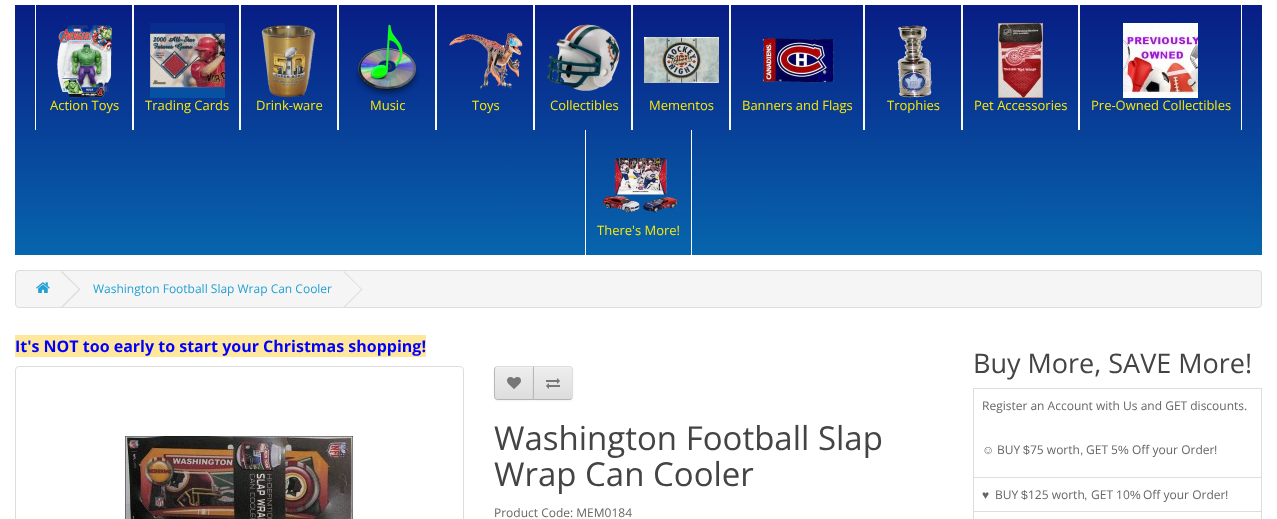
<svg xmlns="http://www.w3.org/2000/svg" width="1277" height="519">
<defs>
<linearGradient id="g1" gradientUnits="userSpaceOnUse" x1="639" y1="5" x2="639" y2="255"><stop offset="0" stop-color="#081d85"/><stop offset="1" stop-color="#0765ad"/></linearGradient>
<clipPath id="clip1"><path d="M498 366h36v34h-36c-2 0-4-2-4-4v-26c0-2 2-4 4-4z"/></clipPath>
<linearGradient id="g2" gradientUnits="userSpaceOnUse" x1="514" y1="367" x2="514" y2="399"><stop offset="0" stop-color="#eee"/><stop offset="1" stop-color="#ddd"/></linearGradient>
<clipPath id="clip2"><path d="M533 366h36c2 0 4 2 4 4v26c0 2-2 4-4 4h-36z"/></clipPath>
<linearGradient id="g3" gradientUnits="userSpaceOnUse" x1="553" y1="367" x2="553" y2="399"><stop offset="0" stop-color="#eee"/><stop offset="1" stop-color="#ddd"/></linearGradient>
</defs>
<rect width="100%" height="100%" fill="#fff"/>
<rect x="15" y="5" width="1247" height="250" fill="url(#g1)"/>
<rect x="132" y="5" width="2" height="125" fill="#f9f9f9"/>
<rect x="35" y="5" width="1" height="125" fill="#f9f9f9"/>
<image x="57" y="25" width="55" height="73" href="media/1.png"/>
<text x="50" y="110" style="font-family:Open Sans;font-size:13px;fill:#fce808">Action Toys</text>
<rect x="239" y="5" width="2" height="125" fill="#f9f9f9"/>
<image x="150" y="23" width="75" height="75" href="media/2.png"/>
<text x="145" y="110" style="font-family:Open Sans;font-size:13px;fill:#fce808">Trading Cards</text>
<rect x="337" y="5" width="2" height="125" fill="#f9f9f9"/>
<image x="260" y="25" width="56" height="73" href="media/3.png"/>
<text x="256" y="110" style="font-family:Open Sans;font-size:13px;fill:#fce808">Drink-ware</text>
<rect x="435" y="5" width="2" height="125" fill="#f9f9f9"/>
<image x="355" y="24" width="65" height="73" href="media/4.png"/>
<text x="370" y="110" style="font-family:Open Sans;font-size:13px;fill:#fce808">Music</text>
<rect x="533" y="5" width="2" height="125" fill="#f9f9f9"/>
<image x="449" y="32" width="74" height="58" href="media/5.png"/>
<text x="472" y="110" style="font-family:Open Sans;font-size:13px;fill:#fce808">Toys</text>
<rect x="631" y="5" width="2" height="125" fill="#f9f9f9"/>
<image x="547" y="24" width="73" height="67" href="media/6.png"/>
<text x="550" y="110" style="font-family:Open Sans;font-size:13px;fill:#fce808">Collectibles</text>
<rect x="729" y="5" width="2" height="125" fill="#f9f9f9"/>
<image x="644" y="37" width="75" height="46" href="media/7.png"/>
<text x="649" y="110" style="font-family:Open Sans;font-size:13px;fill:#fce808">Mementos</text>
<rect x="863" y="5" width="2" height="125" fill="#f9f9f9"/>
<image x="762" y="38" width="72" height="45" href="media/8.png"/>
<text x="742" y="110" style="font-family:Open Sans;font-size:13px;fill:#fce808">Banners and Flags</text>
<rect x="961" y="5" width="2" height="125" fill="#f9f9f9"/>
<image x="897" y="25" width="35" height="73" href="media/9.png"/>
<text x="887" y="110" style="font-family:Open Sans;font-size:13px;fill:#fce808">Trophies</text>
<rect x="1078" y="5" width="2" height="125" fill="#f9f9f9"/>
<image x="998" y="23" width="45" height="75" href="media/10.png"/>
<text x="974" y="110" style="font-family:Open Sans;font-size:13px;fill:#fce808">Pet Accessories</text>
<rect x="1241" y="5" width="1" height="125" fill="#f9f9f9"/>
<image x="1123" y="23" width="75" height="75" href="media/11.png"/>
<text x="1091" y="110" style="font-family:Open Sans;font-size:13px;fill:#fce808">Pre-Owned Collectibles</text>
<rect x="691" y="130" width="1" height="125" fill="#f9f9f9"/>
<rect x="585" y="130" width="1" height="125" fill="#f9f9f9"/>
<image x="603" y="157" width="74" height="56" href="media/12.png"/>
<text x="597" y="235" style="font-family:Open Sans;font-size:13px;fill:#fce808">There's More!</text>
<rect x="15.5" y="270.5" width="1246" height="37" rx="3.5" fill="#f5f5f5" stroke="#ddd"/>
<image x="36" y="282" width="14" height="11" href="media/13.png"/>
<path d="M61 272l1-1l18.5 18.5l-1 .5z" fill="#ddd"/>
<path d="M61 307l18.5-18.5l1 1l-18.5 18.5z" fill="#ddd"/>
<text x="93" y="293" style="font-family:Open Sans;font-size:12px;fill:#23a1d1">Washington Football Slap Wrap Can Cooler</text>
<path d="M343.5 272l.5-1l18.5 18.5l-.5 .5z" fill="#ddd"/>
<path d="M343.5 307l18.5-18.5l.5 1l-18.5 18.5z" fill="#ddd"/>
<rect x="15" y="335" width="411" height="22" fill="#ffe79c"/>
<text x="15" y="352" style="font-family:Open Sans;font-size:16px;font-weight:bold;fill:#00f">It's NOT too early to start your Christmas shopping!</text>
<rect x="15.5" y="366.5" width="448" height="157" rx="3.5" fill="none" stroke="#ddd"/>
<image x="125" y="435" width="228" height="84" href="media/14.png"/>
<rect x="494" y="367" width="40" height="34" rx="4" fill="#0000000d" filter="blur(1px)"/>
<g clip-path="url(#clip1)">
<rect x="494" y="367" width="39" height="32" fill="url(#g2)"/>
</g>
<path d="M498 368h35v-1h-35c-1.5 0-3 1.5-3 3v1c0-2 1-3 3-3z" fill="#f1f1f1"/>
<path d="M498 366c-1 0-2 .5-3 1l1 1c0-1 1-1 2-1h35l1-1z" fill="#ddd"/>
<path d="M534 400l-1-1h-35c-1 0-2 0-2-1l-1 1c1 .5 2 1 3 1z" fill="#b3b3b3"/>
<path d="M494 370v26c0 1 .5 2 1 3l1-1c-1 0-1-1-1-2v-26c0-1 0-2 1-2l-1-1c-.5 1-1 2-1 3z" fill="#b7b7b7"/>
<image x="507" y="377" width="14" height="12" href="media/15.png"/>
<rect x="533" y="367" width="40" height="34" rx="4" fill="#0000000d" filter="blur(1px)"/>
<g clip-path="url(#clip2)">
<rect x="534" y="367" width="39" height="32" fill="url(#g3)"/>
</g>
<path d="M534 368h35c2 0 3 1 3 3v-1c0-1.5-1.5-3-3-3h-35z" fill="#f1f1f1"/>
<path d="M533 366l1 1h35c1 0 2 0 2 1l1-1c-1-.5-2-1-3-1z" fill="#ddd"/>
<path d="M573 396v-26c0-1-.5-2-1-3l-1 1c1 0 1 1 1 2v26c0 1 0 2-1 2l1 1c.5-1 1-2 1-3z" fill="#ddd"/>
<path d="M569 400c1 0 2-.5 3-1l-1-1c0 1-1 1-2 1h-35l-1 1z" fill="#b3b3b3"/>
<path d="M533 366v34l1-1v-32z" fill="#b7b7b7"/>
<image x="546" y="378" width="14" height="11" href="media/16.png"/>
<text x="494" y="450" style="font-family:Open Sans;font-size:33px;fill:#444">Washington Football Slap</text>
<text x="494" y="486" style="font-family:Open Sans;font-size:33px;fill:#444">Wrap Can Cooler</text>
<text x="494" y="517" style="font-family:Open Sans;font-size:12px;fill:#666">Product Code: MEM0184</text>
<text x="973" y="373" style="font-family:Open Sans;font-size:27px;fill:#444">Buy More, SAVE More!</text>
<rect x="973" y="388" width="289" height="1" fill="#ddd"/>
<rect x="1261" y="388" width="1" height="131" fill="#ddd"/>
<rect x="973" y="388" width="1" height="131" fill="#ddd"/>
<text x="982" y="410" style="font-family:Open Sans;font-size:12px;fill:#666">Register an Account with Us and GET discounts.</text>
<text x="982" y="454" style="font-family:Liberation Sans;font-size:12px;fill:#666">☺</text>
<text x="997" y="454" style="font-family:Open Sans;font-size:12px;fill:#666">BUY</text>
<text x="1023" y="454" style="font-family:Liberation Sans;font-size:12px;fill:#666">$</text>
<text x="1030" y="454" style="font-family:Open Sans;font-size:12px;fill:#666">75 worth</text>
<text x="1080" y="454" style="font-family:Liberation Sans;font-size:12px;fill:#666">,</text>
<text x="1086" y="454" style="font-family:Open Sans;font-size:12px;fill:#666">GET 5</text>
<text x="1118" y="454" style="font-family:Liberation Sans;font-size:12px;fill:#666">%</text>
<text x="1132" y="454" style="font-family:Open Sans;font-size:12px;fill:#666">Off your Order</text>
<text x="1214" y="454" style="font-family:Liberation Sans;font-size:12px;fill:#666">!</text>
<rect x="973" y="477" width="289" height="1" fill="#ddd"/>
<text x="982" y="499" style="font-family:Liberation Sans;font-size:12px;fill:#666">♥</text>
<text x="995" y="499" style="font-family:Open Sans;font-size:12px;fill:#666">BUY</text>
<text x="1021" y="499" style="font-family:Liberation Sans;font-size:12px;fill:#666">$</text>
<text x="1028" y="499" style="font-family:Open Sans;font-size:12px;fill:#666">125 worth</text>
<text x="1084" y="499" style="font-family:Liberation Sans;font-size:12px;fill:#666">,</text>
<text x="1091" y="499" style="font-family:Open Sans;font-size:12px;fill:#666">GET 10</text>
<text x="1130" y="499" style="font-family:Liberation Sans;font-size:12px;fill:#666">%</text>
<text x="1143" y="499" style="font-family:Open Sans;font-size:12px;fill:#666">Off your Order</text>
<text x="1225" y="499" style="font-family:Liberation Sans;font-size:12px;fill:#666">!</text>
<rect x="973" y="511" width="289" height="1" fill="#ddd"/>
</svg>
